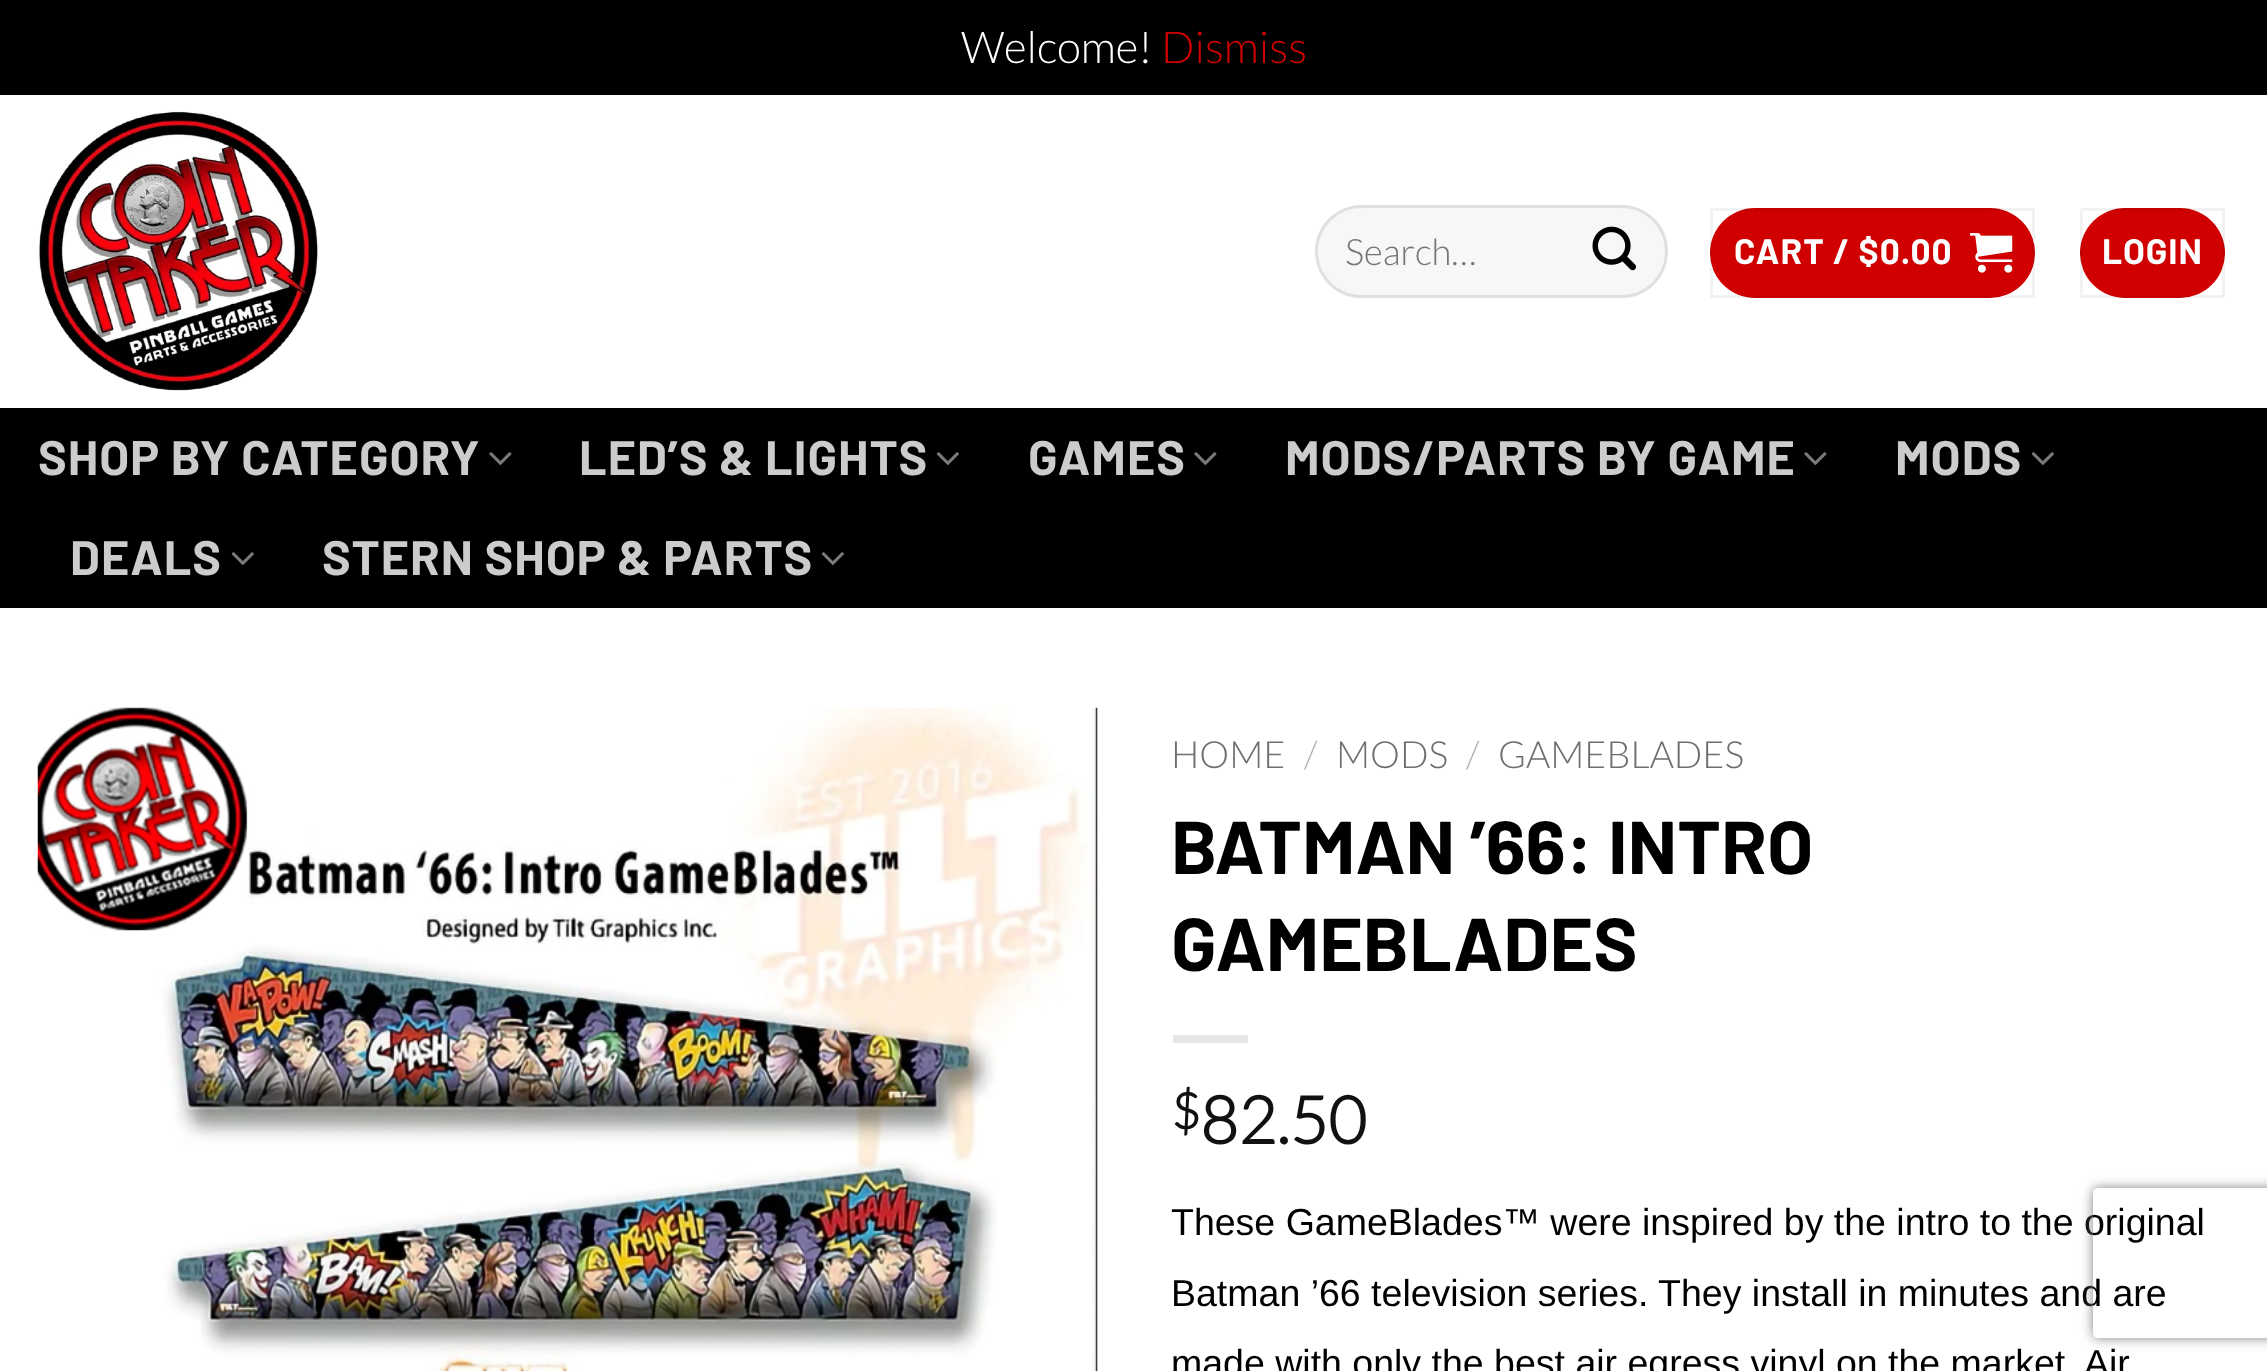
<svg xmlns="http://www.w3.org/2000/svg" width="2267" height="1371">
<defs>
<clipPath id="clip1"><path d="M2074 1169h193v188h-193zm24 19h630c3 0 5 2 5 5v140c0 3-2 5-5 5h-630c-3 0-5-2-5-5v-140c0-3 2-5 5-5z" clip-rule="evenodd"/></clipPath>
</defs>
<rect width="100%" height="100%" fill="#000"/>
<text x="961" y="63" style="font-family:Lato;font-size:44px;font-weight:300;fill:#fff">Welcome!</text>
<text x="1161" y="63" style="font-family:Lato;font-size:44px;font-weight:300;fill:#d00000">Dismiss</text>
<rect y="95" width="2267" height="1276" fill="#fff"/>
<image x="38" y="111" width="280" height="280" href="media/1.png"/>
<rect x="1315" y="205" width="353" height="93" rx="46.5" fill="#f7f7f7"/>
<rect x="1316.5" y="206.5" width="350" height="90" rx="45" fill="none" stroke="#00000017" stroke-width="3"/>
<text x="1345" y="265" style="font-family:Lato;font-size:36.5px;font-weight:300;fill:#757575">Search…</text>
<image x="1592" y="226" width="44" height="45" href="media/2.png"/>
<rect x="1710" y="208" width="325" height="90" rx="45" fill="#d00000"/>
<rect x="1711.5" y="209.5" width="322" height="87" fill="none" stroke="#0000000d" stroke-width="3"/>
<text x="1734" y="264" style="font-family:Barlow;font-size:35.25px;font-weight:bold;letter-spacing:1px;fill:#fff">CART / $0.00</text>
<image x="1970" y="233" width="43" height="40" href="media/3.png"/>
<rect x="2080" y="208" width="145" height="90" rx="45" fill="#d00000"/>
<rect x="2081.5" y="209.5" width="142" height="87" fill="none" stroke="#0000000d" stroke-width="3"/>
<text x="2102" y="264" style="font-family:Barlow;font-size:35.25px;font-weight:bold;letter-spacing:1px;fill:#fff">LOGIN</text>
<rect y="408" width="2267" height="200" fill="#000"/>
<text x="38" y="475" style="font-family:Barlow;font-size:48.4px;font-weight:bold;letter-spacing:1px;fill:#ccc">SHOP BY CATEGORY</text>
<image x="489" y="452" width="23" height="13" href="media/4.png"/>
<text x="579" y="475" style="font-family:Barlow;font-size:48.4px;font-weight:bold;letter-spacing:1px;fill:#ccc">LED’S &amp; LIGHTS</text>
<image x="936" y="452" width="23" height="13" href="media/5.png"/>
<text x="1028" y="475" style="font-family:Barlow;font-size:48.4px;font-weight:bold;letter-spacing:1px;fill:#ccc">GAMES</text>
<image x="1194" y="452" width="23" height="13" href="media/4.png"/>
<text x="1285" y="475" style="font-family:Barlow;font-size:48.4px;font-weight:bold;letter-spacing:1px;fill:#ccc">MODS/PARTS BY GAME</text>
<image x="1804" y="452" width="23" height="13" href="media/4.png"/>
<text x="1895" y="475" style="font-family:Barlow;font-size:48.4px;font-weight:bold;letter-spacing:1px;fill:#ccc">MODS</text>
<image x="2031" y="452" width="23" height="13" href="media/5.png"/>
<text x="70" y="575" style="font-family:Barlow;font-size:48.4px;font-weight:bold;letter-spacing:1px;fill:#ccc">DEALS</text>
<image x="231" y="552" width="23" height="13" href="media/5.png"/>
<text x="322" y="575" style="font-family:Barlow;font-size:48.4px;font-weight:bold;letter-spacing:1px;fill:#ccc">STERN SHOP &amp; PARTS</text>
<image x="821" y="552" width="23" height="13" href="media/5.png"/>
<image x="37" y="707" width="1061" height="664" href="media/6.png"/>
<text x="1171" y="768" style="font-family:Lato;font-size:37.5px;font-weight:300;fill:#6e6e6e">HOME</text>
<text x="1304" y="768" style="font-family:Lato;font-size:37.5px;font-weight:300;fill:#b2b2b2">/</text>
<text x="1336" y="768" style="font-family:Lato;font-size:37.5px;font-weight:300;fill:#6e6e6e">MODS</text>
<text x="1466" y="768" style="font-family:Lato;font-size:37.5px;font-weight:300;fill:#b2b2b2">/</text>
<text x="1498" y="768" style="font-family:Lato;font-size:37.5px;font-weight:300;fill:#6e6e6e">GAMEBLADES</text>
<text x="1171" y="874" style="font-family:Barlow;font-size:74.75px;font-weight:bold;fill:#000">BATMAN ’66: INTRO</text>
<text x="1171" y="971" style="font-family:Barlow;font-size:74.75px;font-weight:bold;fill:#000">GAMEBLADES</text>
<rect x="1173" y="1035" width="75" height="8" fill="#e6e6e6"/>
<text x="1171" y="1129" style="font-family:Lato;font-size:50px;font-weight:bold;fill:#111">$</text>
<text x="1200" y="1144" style="font-family:Lato;font-size:66px;font-weight:bold;fill:#111">82.50</text>
<text x="1171" y="1235" style="font-family:Liberation Sans;font-size:37.5px;fill:#000">These GameBlades™ were inspired by the intro to the original</text>
<text x="1171" y="1306" style="font-family:Liberation Sans;font-size:37.5px;fill:#000">Batman ’66 television series. They install in minutes and are</text>
<text x="1171" y="1376" style="font-family:Liberation Sans;font-size:37.5px;fill:#000">made with only the best air egress vinyl on the market. Air</text>
<g clip-path="url(#clip1)">
<rect x="2093" y="1188" width="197" height="150" rx="5" fill="#808080" filter="blur(6px)"/>
</g>
</svg>
